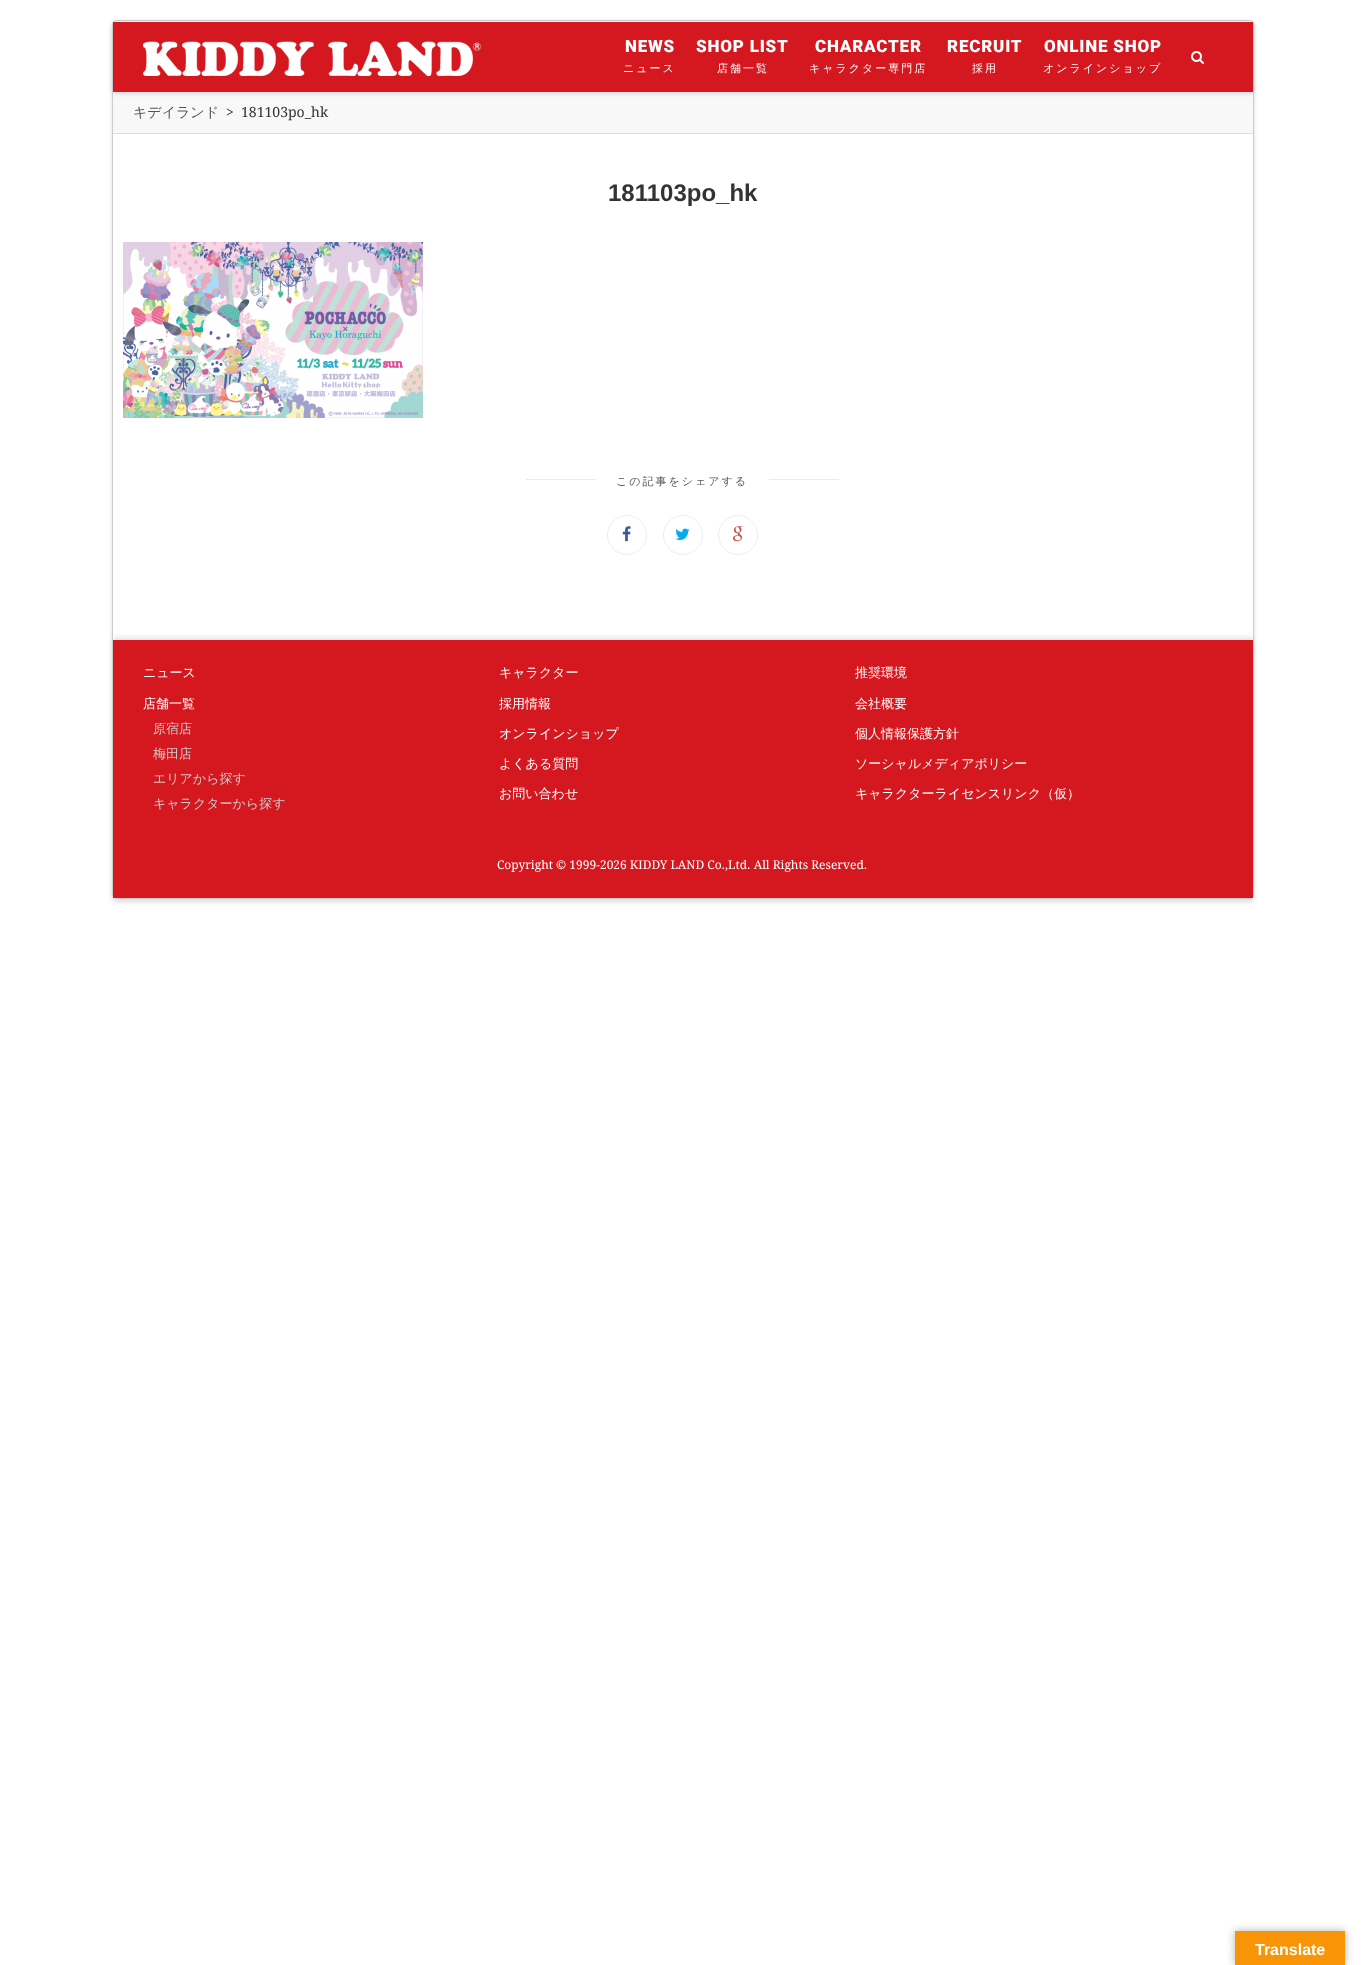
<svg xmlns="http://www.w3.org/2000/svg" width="1365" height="1965">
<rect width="100%" height="100%" fill="#fff"/>
<rect x="112" y="23" width="1142" height="879" rx="4" fill="#bebebe80" filter="blur(2.5px)"/>
<rect x="112.5" y="20.5" width="1141" height="878" rx="3.5" fill="#fff" stroke="#ccc"/>
<rect x="113" y="92" width="1140" height="41" fill="#f8f8f8"/>
<rect x="113" y="23" width="1140" height="70" fill="#bebebeb3" filter="blur(2.5px)"/>
<rect x="113" y="22" width="1140" height="70" fill="#d5181f"/>
<image x="143" y="41" width="338" height="35" href="media/1.png"/>
<text x="625" y="52" style="font-family:Roboto;font-size:17px;font-weight:900;letter-spacing:0.8px;fill:#fff">NEWS</text>
<text x="623" y="72" style="font-family:WenQuanYi Zen Hei;font-size:11px;font-weight:500;letter-spacing:2px;fill:#fff">ニュース</text>
<text x="696" y="52" style="font-family:Roboto;font-size:17px;font-weight:900;letter-spacing:0.8px;fill:#fff">SHOP LIST</text>
<text x="717" y="72" style="font-family:WenQuanYi Zen Hei;font-size:11px;font-weight:500;letter-spacing:2px;fill:#fff">店舗一覧</text>
<text x="815" y="52" style="font-family:Roboto;font-size:17px;font-weight:900;letter-spacing:0.8px;fill:#fff">CHARACTER</text>
<text x="809" y="72" style="font-family:WenQuanYi Zen Hei;font-size:11px;font-weight:500;letter-spacing:2px;fill:#fff">キャラクター専門店</text>
<text x="947" y="52" style="font-family:Roboto;font-size:17px;font-weight:900;letter-spacing:0.8px;fill:#fff">RECRUIT</text>
<text x="972" y="72" style="font-family:WenQuanYi Zen Hei;font-size:11px;font-weight:500;letter-spacing:2px;fill:#fff">採用</text>
<text x="1044" y="52" style="font-family:Roboto;font-size:17px;font-weight:900;letter-spacing:0.8px;fill:#fff">ONLINE SHOP</text>
<text x="1043" y="72" style="font-family:WenQuanYi Zen Hei;font-size:11px;font-weight:500;letter-spacing:2px;fill:#fff">オンラインショップ</text>
<image x="1191" y="51" width="13" height="13" href="media/2.png"/>
<rect x="113" y="133" width="1140" height="1" fill="#ddd"/>
<text x="133" y="117" style="font-family:WenQuanYi Zen Hei;font-size:14px;font-weight:500;fill:#555">キデイランド</text>
<text x="226" y="117" style="font-family:Droid Serif;font-size:14px;fill:#333">&gt;</text>
<text x="241" y="117" style="font-family:Droid Serif;font-size:14px;fill:#333">181103po_hk</text>
<text x="608" y="201" style="font-family:Liberation Sans;font-size:24px;font-weight:bold;fill:#333">181103po_hk</text>
<image x="123" y="242" width="300" height="176" href="media/3.png"/>
<rect x="526" y="479" width="70" height="1" fill="#eaeaea"/>
<text x="616" y="485" style="font-family:WenQuanYi Zen Hei;font-size:11px;font-weight:500;letter-spacing:2px;fill:#555">この記事をシェアする</text>
<rect x="769" y="479" width="70" height="1" fill="#eaeaea"/>
<circle cx="627" cy="535" r="19.5" fill="none" stroke="#eee"/>
<image x="622" y="526" width="9" height="16" href="media/4.png"/>
<circle cx="683" cy="535" r="19.5" fill="none" stroke="#eee"/>
<image x="675" y="528" width="15" height="12" href="media/5.png"/>
<circle cx="738" cy="535" r="19.5" fill="none" stroke="#eee"/>
<image x="733" y="526" width="10" height="16" href="media/6.png"/>
<rect x="113" y="637" width="1140" height="258" fill="#bebebe66" filter="blur(2.5px)"/>
<rect x="113" y="640" width="1140" height="258" fill="#d5181f"/>
<text x="143" y="677" style="font-family:WenQuanYi Zen Hei;font-size:13px;font-weight:500;fill:#fff">ニュース</text>
<text x="143" y="708" style="font-family:WenQuanYi Zen Hei;font-size:13px;font-weight:500;fill:#fff">店舗一覧</text>
<text x="153" y="733" style="font-family:WenQuanYi Zen Hei;font-size:13px;font-weight:500;fill:#ccc">原宿店</text>
<text x="153" y="758" style="font-family:WenQuanYi Zen Hei;font-size:13px;font-weight:500;fill:#ccc">梅田店</text>
<text x="153" y="783" style="font-family:WenQuanYi Zen Hei;font-size:13px;font-weight:500;fill:#ccc">エリアから探す</text>
<text x="153" y="808" style="font-family:WenQuanYi Zen Hei;font-size:13px;font-weight:500;fill:#ccc">キャラクターから探す</text>
<text x="499" y="677" style="font-family:WenQuanYi Zen Hei;font-size:13px;font-weight:500;fill:#fff">キャラクター</text>
<text x="499" y="708" style="font-family:WenQuanYi Zen Hei;font-size:13px;font-weight:500;fill:#fff">採用情報</text>
<text x="499" y="738" style="font-family:WenQuanYi Zen Hei;font-size:13px;font-weight:500;fill:#fff">オンラインショップ</text>
<text x="499" y="768" style="font-family:WenQuanYi Zen Hei;font-size:13px;font-weight:500;fill:#fff">よくある質問</text>
<text x="499" y="798" style="font-family:WenQuanYi Zen Hei;font-size:13px;font-weight:500;fill:#fff">お問い合わせ</text>
<text x="855" y="677" style="font-family:WenQuanYi Zen Hei;font-size:13px;font-weight:500;fill:#fff">推奨環境</text>
<text x="855" y="708" style="font-family:WenQuanYi Zen Hei;font-size:13px;font-weight:500;fill:#fff">会社概要</text>
<text x="855" y="738" style="font-family:WenQuanYi Zen Hei;font-size:13px;font-weight:500;fill:#fff">個人情報保護方針</text>
<text x="855" y="768" style="font-family:WenQuanYi Zen Hei;font-size:13px;font-weight:500;fill:#fff">ソーシャルメディアポリシー</text>
<text x="855" y="798" style="font-family:WenQuanYi Zen Hei;font-size:13px;font-weight:500;fill:#fff">キャラクターライセンスリンク（仮）</text>
<text x="497" y="869" style="font-family:Droid Serif;font-size:12px;fill:#fff">Copyright © 1999-2026 KIDDY LAND Co.,Ltd. All Rights Reserved.</text>
<rect x="1235" y="1931" width="110" height="34" fill="#0000004d" filter="blur(4.5px)"/>
<rect x="1235" y="1931" width="110" height="34" fill="#f89406"/>
<text x="1255" y="1955" style="font-family:Liberation Sans;font-size:16px;font-weight:bold;fill:#fff">Translate</text>
</svg>
